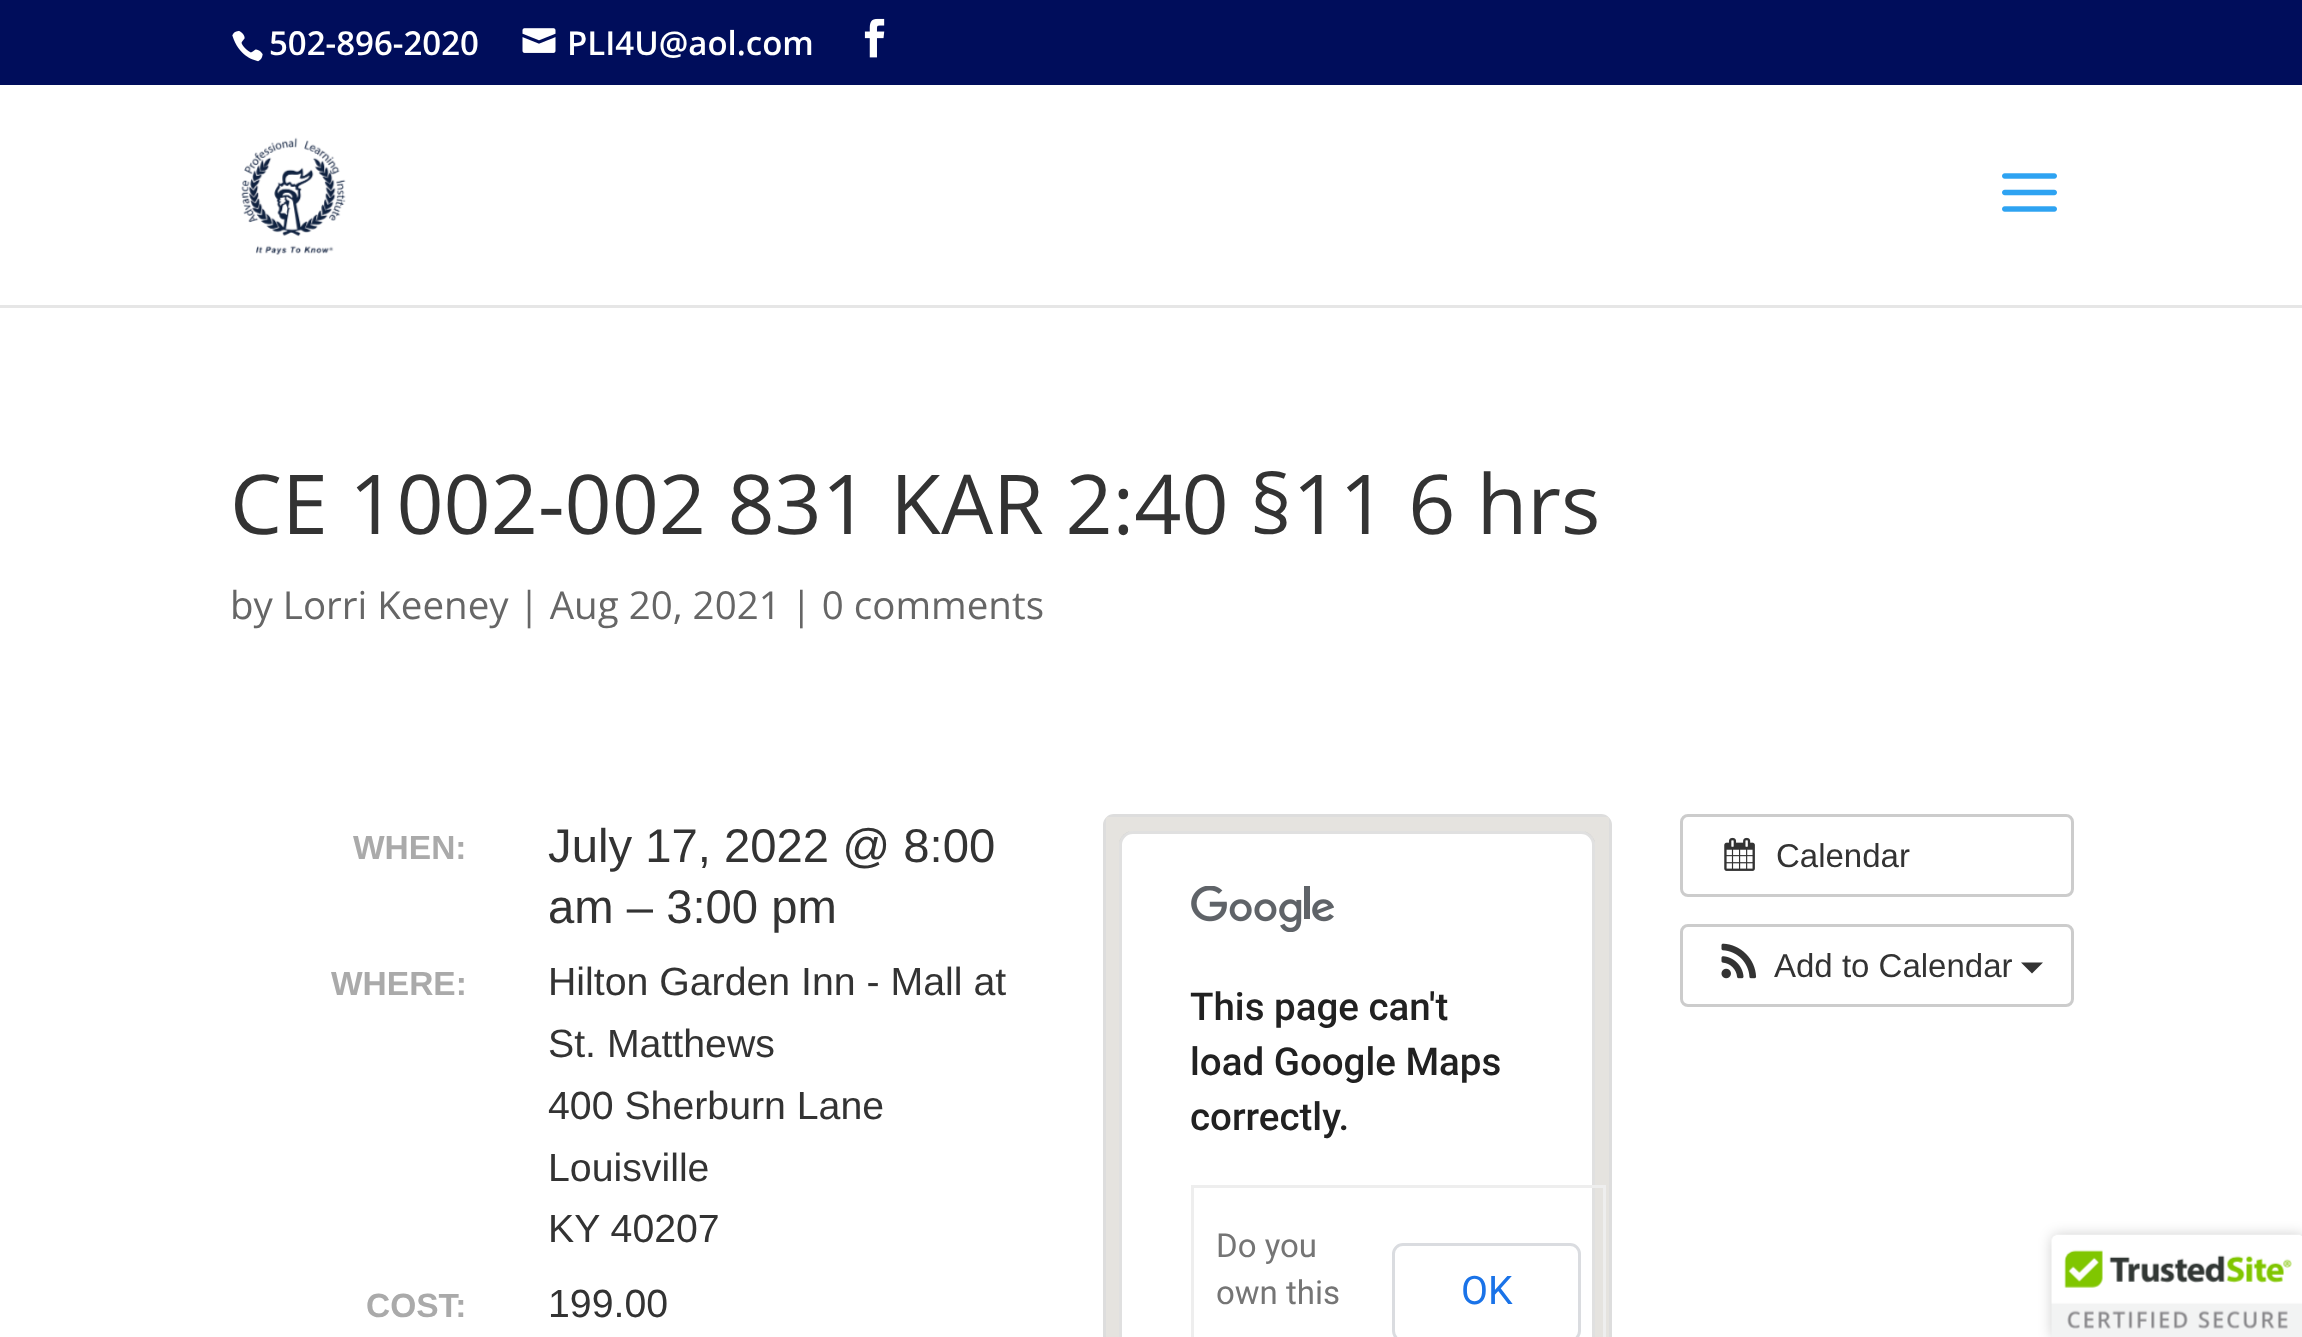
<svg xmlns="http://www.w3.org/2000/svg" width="2302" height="1337">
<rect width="100%" height="100%" fill="#fff"/>
<rect width="2302" height="85" fill="#000d5b"/>
<image x="232" y="30" width="31" height="32" href="media/1.png"/>
<text x="269" y="55" style="font-family:Open Sans;font-size:33px;font-weight:600;fill:#fff">502-896-2020</text>
<image x="522" y="28" width="34" height="25" href="media/2.png"/>
<text x="567" y="55" style="font-family:Open Sans;font-size:33px;font-weight:600;fill:#fff">PLI4U@aol.com</text>
<image x="864" y="18" width="21" height="40" href="media/3.png"/>
<path d="M0 305v3h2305v-220h-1v217z" fill="#e6e6e6"/>
<image x="241" y="137" width="105" height="118" href="media/4.png"/>
<image x="2002" y="173" width="55" height="39" href="media/5.png"/>
<text x="230" y="534" style="font-family:Open Sans;font-size:82.5px;fill:#333">CE 1002-002 831 KAR 2:40 §11 6 hrs</text>
<text x="230" y="619" style="font-family:Open Sans;font-size:38.5px;fill:#666">by Lorri Keeney | Aug 20, 2021 | 0 comments</text>
<text x="353" y="859" style="font-family:Liberation Sans;font-size:33.5px;font-weight:bold;fill:#aaa">WHEN:</text>
<text x="548" y="862" style="font-family:Liberation Sans;font-size:47.25px;fill:#333">July 17, 2022 @ 8:00</text>
<text x="548" y="923" style="font-family:Liberation Sans;font-size:47.25px;fill:#333">am – 3:00 pm</text>
<text x="331" y="995" style="font-family:Liberation Sans;font-size:33.5px;font-weight:bold;fill:#aaa">WHERE:</text>
<text x="548" y="995" style="font-family:Liberation Sans;font-size:39.25px;fill:#333">Hilton Garden Inn - Mall at</text>
<text x="548" y="1057" style="font-family:Liberation Sans;font-size:39.25px;fill:#333">St. Matthews</text>
<text x="548" y="1119" style="font-family:Liberation Sans;font-size:39.25px;fill:#333">400 Sherburn Lane</text>
<text x="548" y="1181" style="font-family:Liberation Sans;font-size:39.25px;fill:#333">Louisville</text>
<text x="548" y="1242" style="font-family:Liberation Sans;font-size:39.25px;fill:#333">KY 40207</text>
<text x="366" y="1317" style="font-family:Liberation Sans;font-size:33.5px;font-weight:bold;fill:#aaa">COST:</text>
<text x="548" y="1317" style="font-family:Liberation Sans;font-size:39.25px;fill:#333">199.00</text>
<rect x="1104.5" y="815.5" width="506" height="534" rx="9.5" fill="none" stroke="#ddd" stroke-width="3"/>
<rect x="1106" y="817" width="503" height="520" fill="#e5e3df"/>
<path d="M1133 831h448c7.5 0 14 6.5 14 14v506h-476v-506c0-7.5 6.5-14 14-14z" fill="#fff"/>
<rect x="1120.5" y="832.5" width="473" height="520" rx="12.5" fill="none" stroke="#0000001f" stroke-width="3"/>
<image x="1191" y="886" width="143" height="46" href="media/6.png"/>
<text x="1190" y="1020" style="font-family:Roboto;font-size:38.5px;font-weight:500;fill:#212121">This page can't</text>
<text x="1190" y="1075" style="font-family:Roboto;font-size:38.5px;font-weight:500;fill:#212121">load Google Maps</text>
<text x="1190" y="1130" style="font-family:Roboto;font-size:38.5px;font-weight:500;fill:#212121">correctly.</text>
<rect x="1191" y="1185" width="415" height="3" fill="#eee"/>
<rect x="1603" y="1185" width="3" height="152" fill="#eee"/>
<rect x="1191" y="1185" width="3" height="152" fill="#eee"/>
<text x="1216" y="1257" style="font-family:Roboto;font-size:33px;fill:#757575">Do you</text>
<text x="1216" y="1304" style="font-family:Roboto;font-size:33px;fill:#757575">own this</text>
<rect x="1393.5" y="1244.5" width="186" height="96" rx="9.5" fill="none" stroke="#dadce0" stroke-width="3"/>
<text x="1461" y="1304" style="font-family:Roboto;font-size:39.25px;fill:#1a73e8">OK</text>
<rect x="1681.5" y="815.5" width="391" height="80" rx="6.5" fill="none" stroke="#ccc" stroke-width="3"/>
<image x="1724" y="837" width="31" height="34" href="media/7.png"/>
<text x="1776" y="867" style="font-family:Liberation Sans;font-size:33px;fill:#333">Calendar</text>
<rect x="1681.5" y="925.5" width="391" height="80" rx="6.5" fill="none" stroke="#ccc" stroke-width="3"/>
<image x="1721" y="943" width="36" height="36" href="media/8.png"/>
<text x="1774" y="977" style="font-family:Liberation Sans;font-size:33px;fill:#333">Add to Calendar</text>
<path d="M2021 962.5h22l-11 11z" fill="#333"/>
<rect x="2052" y="1235" width="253" height="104" rx="6" fill="#00000033" filter="blur(7px)"/>
<image x="2051" y="1234" width="251" height="103" href="media/9.png"/>
</svg>
